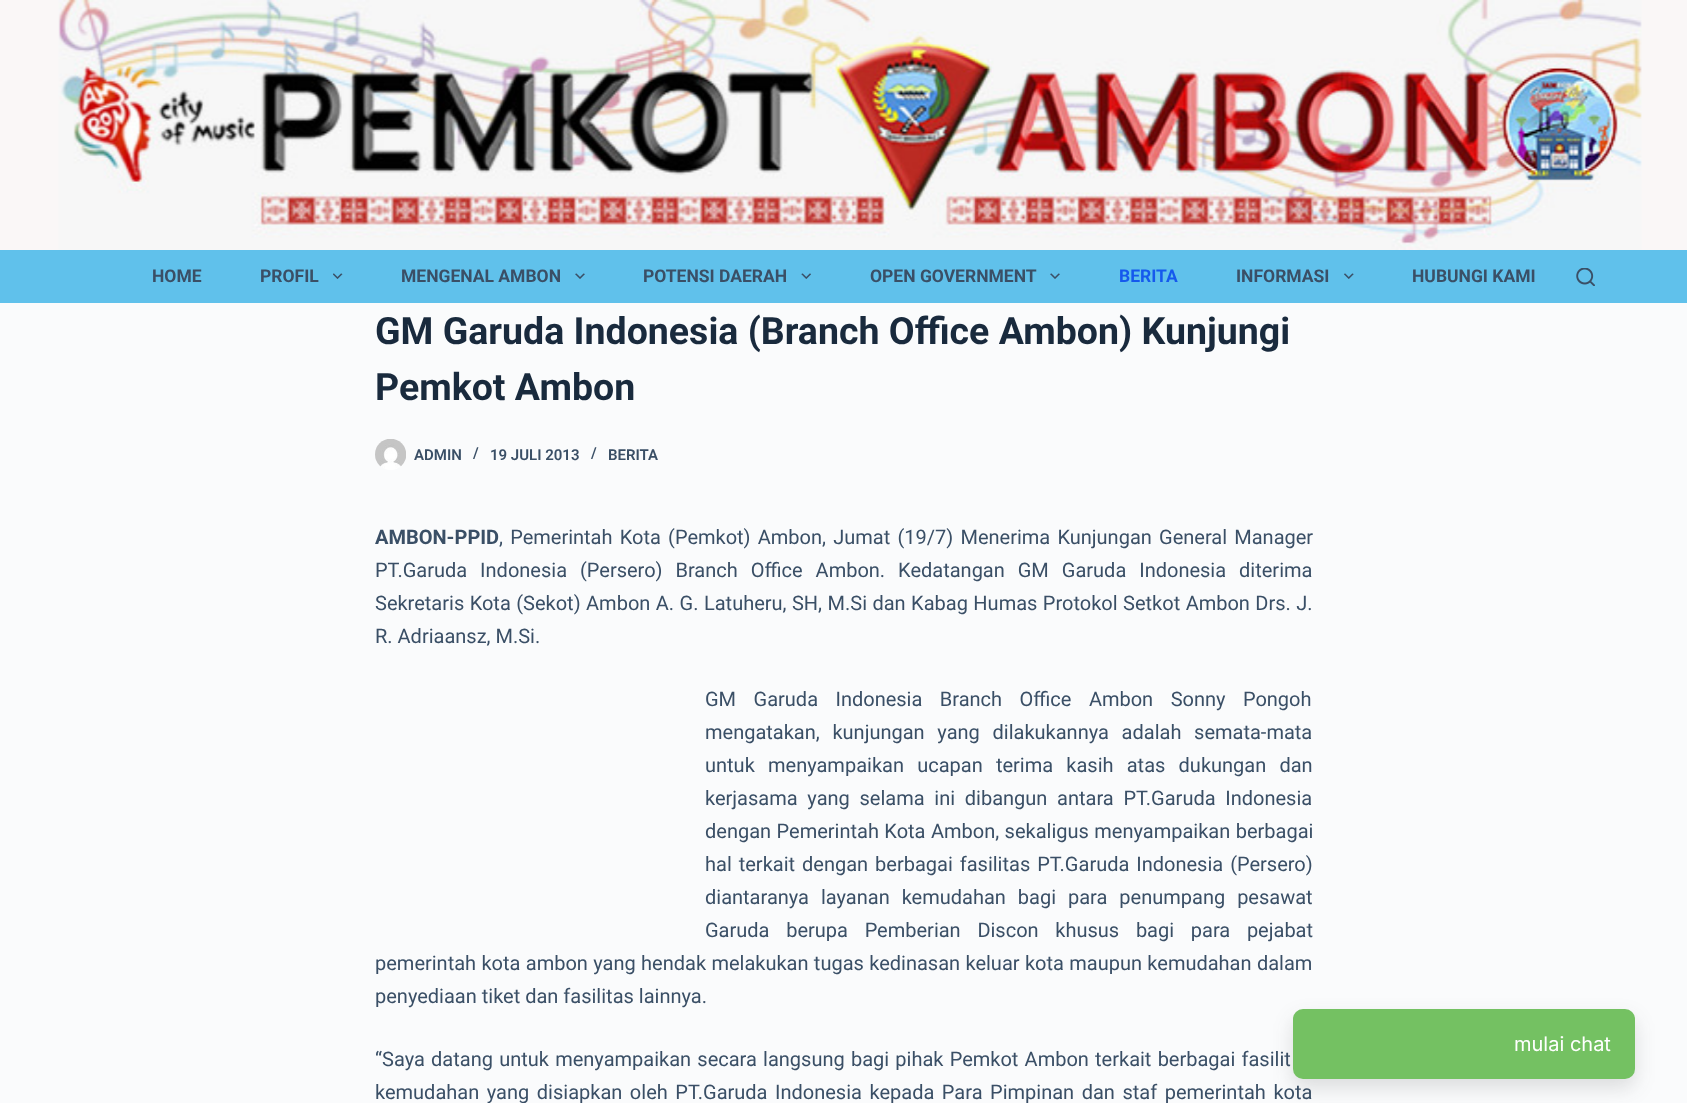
<svg xmlns="http://www.w3.org/2000/svg" width="1687" height="1103">
<rect width="100%" height="100%" fill="#fafbfc"/>
<rect width="1687" height="250" fill="#faf7f7"/>
<image x="58" y="0" width="1584" height="250" href="media/1.png"/>
<rect y="250" width="1687" height="53" fill="#60c1eb"/>
<text x="152" y="282" style="font-family:Roboto;font-size:17.5px;font-weight:bold;fill:#3a4f66">HOME</text>
<text x="260" y="282" style="font-family:Roboto;font-size:17.5px;font-weight:bold;fill:#3a4f66">PROFIL</text>
<image x="333" y="273" width="10" height="6" href="media/2.png"/>
<text x="401" y="282" style="font-family:Roboto;font-size:17.5px;font-weight:bold;fill:#3a4f66">MENGENAL AMBON</text>
<image x="575" y="273" width="10" height="6" href="media/3.png"/>
<text x="643" y="282" style="font-family:Roboto;font-size:17.5px;font-weight:bold;fill:#3a4f66">POTENSI DAERAH</text>
<image x="801" y="273" width="10" height="6" href="media/4.png"/>
<text x="870" y="282" style="font-family:Roboto;font-size:17.5px;font-weight:bold;fill:#3a4f66">OPEN GOVERNMENT</text>
<image x="1050" y="273" width="10" height="6" href="media/3.png"/>
<text x="1119" y="282" style="font-family:Roboto;font-size:17.5px;font-weight:bold;fill:#1559ed">BERITA</text>
<text x="1236" y="282" style="font-family:Roboto;font-size:17.5px;font-weight:bold;fill:#3a4f66">INFORMASI</text>
<image x="1344" y="273" width="10" height="6" href="media/5.png"/>
<text x="1412" y="282" style="font-family:Roboto;font-size:17.5px;font-weight:bold;fill:#3a4f66">HUBUNGI KAMI</text>
<image x="1576" y="268" width="19" height="18" href="media/6.png"/>
<text x="375" y="344" style="font-family:Roboto;font-size:37.5px;font-weight:bold;fill:#192a3d">GM Garuda Indonesia (Branch Office Ambon) Kunjungi</text>
<text x="375" y="400" style="font-family:Roboto;font-size:37.5px;font-weight:bold;fill:#192a3d">Pemkot Ambon</text>
<image x="375" y="439" width="31" height="31" href="media/7.png"/>
<text x="414" y="460" style="font-family:Roboto;font-size:15px;font-weight:600;fill:#3a4f66">ADMIN</text>
<text x="473" y="458" style="font-family:Roboto;font-size:15px;font-weight:600;fill:#3a4f66">/</text>
<text x="490" y="460" style="font-family:Roboto;font-size:15px;font-weight:600;fill:#3a4f66">19 JULI 2013</text>
<text x="591" y="458" style="font-family:Roboto;font-size:15px;font-weight:600;fill:#3a4f66">/</text>
<text x="608" y="460" style="font-family:Roboto;font-size:15px;font-weight:600;fill:#3a4f66">BERITA</text>
<text x="375" y="544" style="font-family:Roboto;font-size:20px;font-weight:bold;fill:#3a4f66">AMBON-PPID</text>
<text x="499" y="544" word-spacing="2.25" style="font-family:Roboto;font-size:20px;fill:#3a4f66">, Pemerintah Kota (Pemkot) Ambon, Jumat (19/7) Menerima Kunjungan General Manager</text>
<text x="375" y="577" word-spacing="8" style="font-family:Roboto;font-size:20px;fill:#3a4f66">PT.Garuda Indonesia (Persero) Branch Office Ambon. Kedatangan GM Garuda Indonesia diterima</text>
<text x="375" y="610" word-spacing="0.5" style="font-family:Roboto;font-size:20px;fill:#3a4f66">Sekretaris Kota (Sekot) Ambon A. G. Latuheru, SH, M.Si dan Kabag Humas Protokol Setkot Ambon Drs. J.</text>
<text x="375" y="643" style="font-family:Roboto;font-size:20px;fill:#3a4f66">R. Adriaansz, M.Si.</text>
<text x="705" y="706" word-spacing="12.5" style="font-family:Roboto;font-size:20px;fill:#3a4f66">GM Garuda Indonesia Branch Office Ambon Sonny Pongoh</text>
<text x="705" y="739" word-spacing="7.75" style="font-family:Roboto;font-size:20px;fill:#3a4f66">mengatakan, kunjungan yang dilakukannya adalah semata-mata</text>
<text x="705" y="772" word-spacing="8.25" style="font-family:Roboto;font-size:20px;fill:#3a4f66">untuk menyampaikan ucapan terima kasih atas dukungan dan</text>
<text x="705" y="805" word-spacing="4.75" style="font-family:Roboto;font-size:20px;fill:#3a4f66">kerjasama yang selama ini dibangun antara PT.Garuda Indonesia</text>
<text x="705" y="838" word-spacing="0.5" style="font-family:Roboto;font-size:20px;fill:#3a4f66">dengan Pemerintah Kota Ambon, sekaligus menyampaikan berbagai</text>
<text x="705" y="871" word-spacing="2" style="font-family:Roboto;font-size:20px;fill:#3a4f66">hal terkait dengan berbagai fasilitas PT.Garuda Indonesia (Persero)</text>
<text x="705" y="904" word-spacing="7" style="font-family:Roboto;font-size:20px;fill:#3a4f66">diantaranya layanan kemudahan bagi para penumpang pesawat</text>
<text x="705" y="937" word-spacing="11.75" style="font-family:Roboto;font-size:20px;fill:#3a4f66">Garuda berupa Pemberian Discon khusus bagi para pejabat</text>
<text x="375" y="970" word-spacing="0.4" style="font-family:Roboto;font-size:20px;fill:#3a4f66">pemerintah kota ambon yang hendak melakukan tugas kedinasan keluar kota maupun kemudahan dalam</text>
<text x="375" y="1003" style="font-family:Roboto;font-size:20px;fill:#3a4f66">penyediaan tiket dan fasilitas lainnya.</text>
<text x="375" y="1066" word-spacing="1.25" style="font-family:Roboto;font-size:20px;fill:#3a4f66">“Saya datang untuk menyampaikan secara langsung bagi pihak Pemkot Ambon terkait berbagai fasilit</text>
<text x="375" y="1099" word-spacing="2.6" style="font-family:Roboto;font-size:20px;fill:#3a4f66">kemudahan yang disiapkan oleh PT.Garuda Indonesia kepada Para Pimpinan dan staf pemerintah kota</text>
<rect x="1293" y="1018" width="342" height="70" rx="10" fill="#2e2e2e26" filter="blur(10px)"/>
<rect x="1293" y="1009" width="342" height="70" rx="10" fill="#74c162"/>
<text x="1514" y="1051" style="font-family:Inter;font-size:20px;fill:#fff">mulai chat</text>
</svg>
